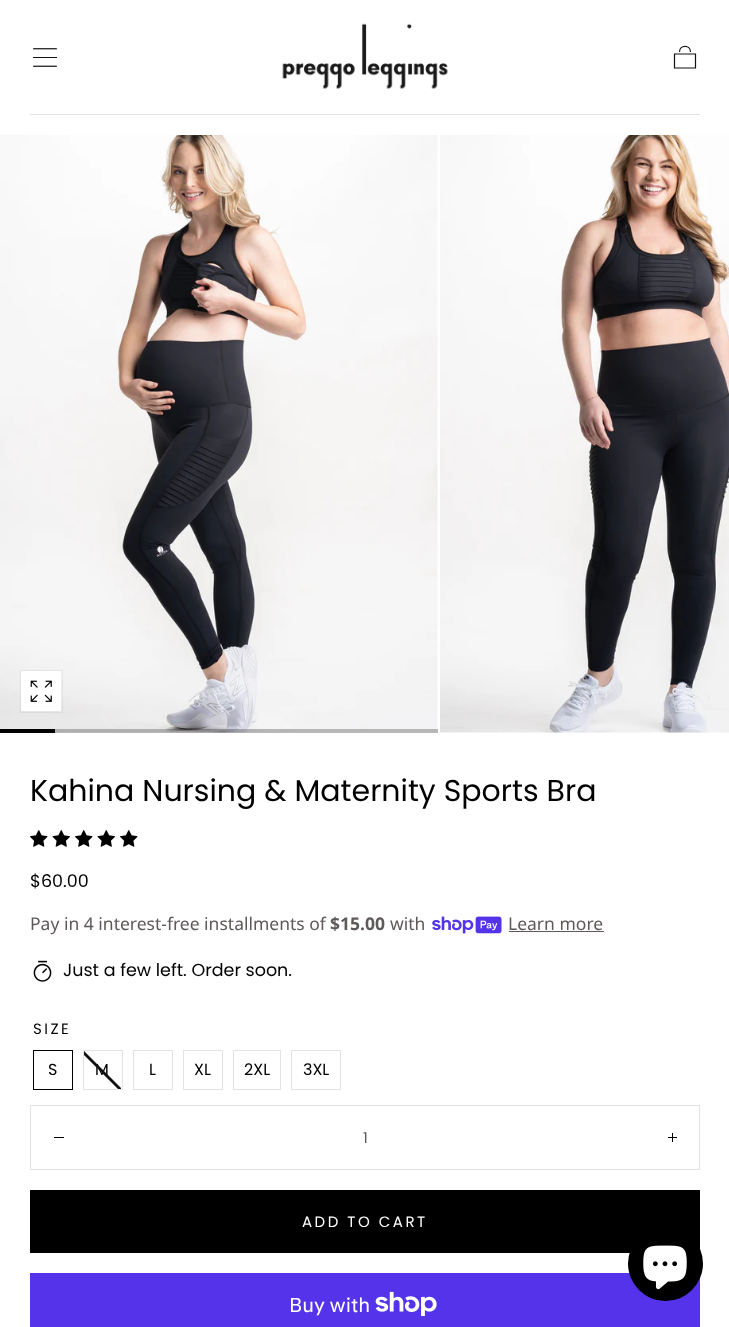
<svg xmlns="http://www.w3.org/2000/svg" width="729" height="1327">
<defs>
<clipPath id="clip1"><rect x="84" y="1051" width="37" height="38"/></clipPath>
</defs>
<rect width="100%" height="100%" fill="#fff"/>
<image x="33" y="48" width="24" height="19" href="media/1.png"/>
<image x="282" y="23" width="166" height="66" href="media/2.png"/>
<path d="M695.5 68h-21v-14h21zm-5-16c0-7.5-11-7.5-11 0" fill="none" stroke="#111" stroke-width="1.2"/>
<rect x="30" y="114" width="670" height="1" fill="#e6e2e1"/>
<image x="0" y="135" width="438" height="598" href="media/3.png"/>
<image x="440" y="135" width="289" height="598" href="media/4.png"/>
<rect x="20.5" y="670.5" width="42" height="42" fill="none" stroke="#0000000d"/>
<rect x="21" y="671" width="40" height="40" fill="#fff"/>
<image x="30" y="680" width="22" height="22" href="media/5.png"/>
<rect x="55" y="729" width="383" height="4" fill="#00000040"/>
<rect y="729" width="55" height="4" fill="#000"/>
<text x="30" y="801" style="font-family:Poppins;font-size:30px;fill:#000">Kahina Nursing &amp; Maternity Sports Bra</text>
<image x="30" y="830" width="18" height="17" href="media/6.png"/>
<image x="52" y="830" width="18" height="17" href="media/7.png"/>
<image x="75" y="830" width="18" height="17" href="media/6.png"/>
<image x="97" y="830" width="18" height="17" href="media/7.png"/>
<image x="120" y="830" width="18" height="17" href="media/6.png"/>
<text x="30" y="887" style="font-family:Poppins;font-size:17.5px;fill:#000">$60.00</text>
<text x="30" y="930" style="font-family:Noto Sans;font-size:17.5px;fill:#5e5a59">Pay in 4 interest-free installments of</text>
<text x="330" y="930" style="font-family:Noto Sans;font-size:17.5px;font-weight:bold;fill:#5e5a59">$15.00</text>
<text x="390" y="930" style="font-family:Noto Sans;font-size:17.5px;fill:#5e5a59">with</text>
<image x="432" y="916" width="70" height="18" href="media/8.png"/>
<text x="508" y="930" style="font-family:Noto Sans;font-size:17.5px;fill:#5e5a59">Learn more</text>
<rect x="509" y="931" width="95" height="1" fill="#5e5a59"/>
<image x="33" y="960" width="19" height="22" href="media/9.png"/>
<text x="63" y="976" style="font-family:Poppins;font-size:17.5px;fill:#000">Just a few left. Order soon.</text>
<text x="33" y="1034" style="font-family:Poppins;font-size:15px;letter-spacing:2.5px;fill:#000">SIZE</text>
<rect x="33.5" y="1050.5" width="39" height="39" fill="none" stroke="#000"/>
<text x="48" y="1075" style="font-family:Poppins;font-size:16px;fill:#000">S</text>
<rect x="83.5" y="1050.5" width="39" height="39" fill="none" stroke="#e6e2e1"/>
<text x="95" y="1075" style="font-family:Poppins;font-size:16px;fill:#000">M</text>
<g clip-path="url(#clip1)">
<path d="M84 1051l40 40l-2 2l-40-40z" fill="#111"/>
</g>
<rect x="133.5" y="1050.5" width="39" height="39" fill="none" stroke="#e6e2e1"/>
<text x="149" y="1075" style="font-family:Poppins;font-size:16px;fill:#000">L</text>
<rect x="183.5" y="1050.5" width="39" height="39" fill="none" stroke="#e6e2e1"/>
<text x="194" y="1075" style="font-family:Poppins;font-size:16px;fill:#000">XL</text>
<rect x="233.5" y="1050.5" width="47" height="39" fill="none" stroke="#e6e2e1"/>
<text x="244" y="1075" style="font-family:Poppins;font-size:16px;fill:#000">2XL</text>
<rect x="291.5" y="1050.5" width="49" height="39" fill="none" stroke="#e6e2e1"/>
<text x="303" y="1075" style="font-family:Poppins;font-size:16px;fill:#000">3XL</text>
<rect x="30.5" y="1105.5" width="669" height="64" fill="none" stroke="#e6e2e1"/>
<rect x="54" y="1137" width="10" height="1" fill="#000"/>
<text x="363" y="1143" style="font-family:Poppins;font-size:15px;fill:#5e5a59">1</text>
<rect x="672" y="1133" width="1" height="9" fill="#000"/>
<rect x="668" y="1137" width="9" height="1" fill="#000"/>
<rect x="30" y="1190" width="670" height="63" fill="#000"/>
<text x="302" y="1227" style="font-family:Poppins;font-size:15px;letter-spacing:2.5px;fill:#fff">ADD TO CART</text>
<rect x="30" y="1273" width="670" height="54" fill="#5433eb"/>
<text x="289" y="1312" style="font-family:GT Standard;font-size:20px;fill:#fff">Buy with</text>
<image x="375" y="1291" width="62" height="25" href="media/10.png"/>
<circle cx="665.5" cy="1263.5" r="37.5" fill="#000"/>
<image x="643" y="1245" width="44" height="45" href="media/11.png"/>
</svg>
